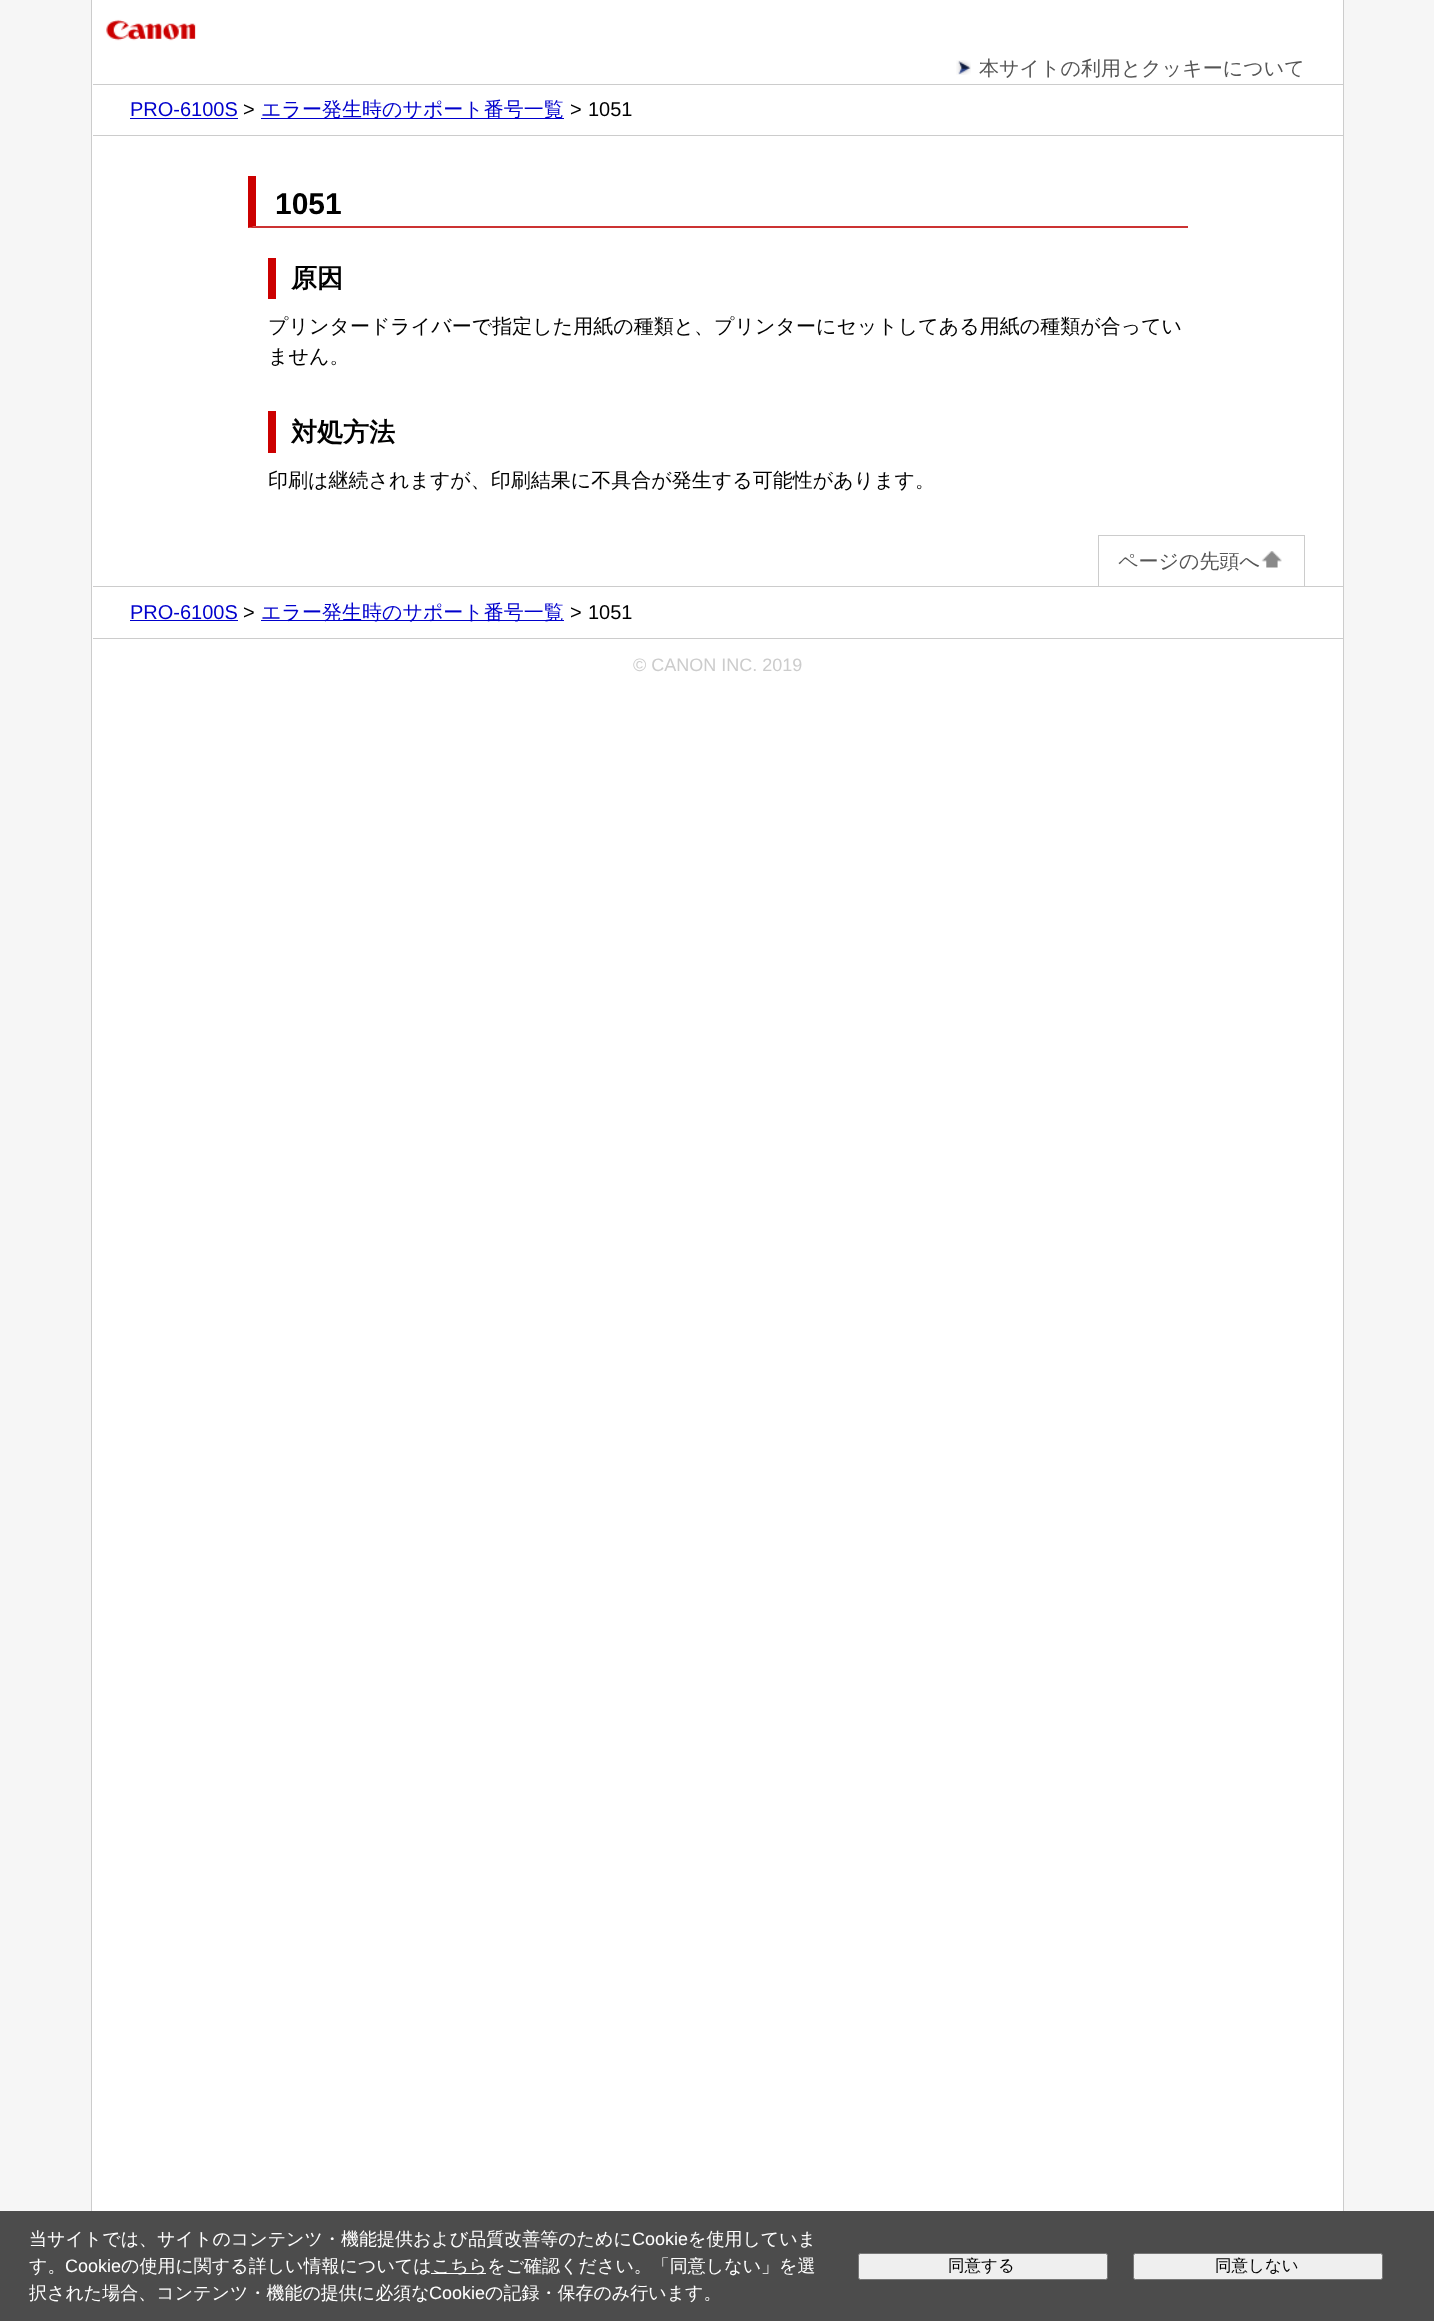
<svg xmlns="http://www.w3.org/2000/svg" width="1434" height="2321">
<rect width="100%" height="100%" fill="#f6f6f6"/>
<rect x="92" width="1251" height="2211" fill="#fff"/>
<rect x="1343" width="1" height="2211" fill="#ccc"/>
<rect x="91" width="1" height="2211" fill="#ccc"/>
<image x="106" y="19" width="90" height="22" href="media/1.png"/>
<rect x="93" y="135" width="1250" height="1" fill="#ccc"/>
<image x="956" y="60" width="15" height="15" href="media/2.png"/>
<text x="979" y="75" style="font-family:WenQuanYi Zen Hei;font-size:20px;font-weight:500;fill:#555">本サイトの利用とクッキーについて</text>
<rect x="93" y="84" width="1250" height="1" fill="#ccc"/>
<text x="130" y="116" style="font-family:Liberation Sans;font-size:20px;fill:#00c">PRO-6100S</text>
<rect x="130" y="118" width="108" height="1" fill="#00c"/>
<text x="243" y="116" style="font-family:Liberation Sans;font-size:20px;fill:#000">&gt;</text>
<rect x="261" y="118" width="303" height="1" fill="#00c"/>
<text x="261" y="116" style="font-family:WenQuanYi Zen Hei;font-size:20px;font-weight:500;fill:#00c">エラー発生時のサポート番号一覧</text>
<text x="570" y="116" style="font-family:Liberation Sans;font-size:20px;fill:#000">&gt;</text>
<text x="588" y="116" style="font-family:Liberation Sans;font-size:20px;fill:#000">1051</text>
<path d="M1188 228h-940l8-2h932z" fill="#c33"/>
<path d="M248 228v-52h8v50z" fill="#c00"/>
<text x="275" y="214" style="font-family:Liberation Sans;font-size:30px;font-weight:bold;fill:#000">1051</text>
<rect x="268" y="258" width="8" height="41" fill="#c00"/>
<text x="291" y="287" style="font-family:WenQuanYi Zen Hei;font-size:26px;font-weight:bold;fill:#000">原因</text>
<text x="268" y="333" style="font-family:WenQuanYi Zen Hei;font-size:20px;font-weight:500;fill:#000">プリンタードライバーで指定した用紙の種類と、プリンターにセットしてある用紙の種類が合ってい</text>
<text x="268" y="363" style="font-family:WenQuanYi Zen Hei;font-size:20px;font-weight:500;fill:#000">ません。</text>
<rect x="268" y="411" width="8" height="42" fill="#c00"/>
<text x="291" y="441" style="font-family:WenQuanYi Zen Hei;font-size:26px;font-weight:bold;fill:#000">対処方法</text>
<text x="268" y="487" style="font-family:WenQuanYi Zen Hei;font-size:20px;font-weight:500;fill:#000">印刷は継続されますが、印刷結果に不具合が発生する可能性があります。</text>
<rect x="93" y="638" width="1250" height="1" fill="#ccc"/>
<rect x="1098" y="535" width="207" height="1" fill="#ccc"/>
<rect x="1304" y="535" width="1" height="51" fill="#ccc"/>
<rect x="1098" y="535" width="1" height="51" fill="#ccc"/>
<text x="1118" y="568" style="font-family:WenQuanYi Zen Hei;font-size:20px;font-weight:500;fill:#555">ページの先頭へ</text>
<image x="1261" y="551" width="21" height="17" href="media/3.png"/>
<rect x="93" y="586" width="1250" height="1" fill="#ccc"/>
<text x="130" y="619" style="font-family:Liberation Sans;font-size:20px;fill:#00c">PRO-6100S</text>
<rect x="130" y="620" width="108" height="1" fill="#00c"/>
<text x="243" y="619" style="font-family:Liberation Sans;font-size:20px;fill:#000">&gt;</text>
<rect x="261" y="620" width="303" height="1" fill="#00c"/>
<text x="261" y="619" style="font-family:WenQuanYi Zen Hei;font-size:20px;font-weight:500;fill:#00c">エラー発生時のサポート番号一覧</text>
<text x="570" y="619" style="font-family:Liberation Sans;font-size:20px;fill:#000">&gt;</text>
<text x="588" y="619" style="font-family:Liberation Sans;font-size:20px;fill:#000">1051</text>
<text x="633" y="671" style="font-family:Liberation Sans;font-size:18px;fill:#ccc">© CANON INC. 2019</text>
<rect y="2211" width="1434" height="110" fill="#4c4c4c"/>
<text x="29" y="2245" style="font-family:WenQuanYi Zen Hei;font-size:18px;font-weight:500;fill:#fff">当サイトでは、サイトのコンテンツ・機能提供および品質改善等のために</text>
<text x="632" y="2245" style="font-family:Liberation Sans;font-size:18px;fill:#fff">Cookie</text>
<text x="688" y="2245" style="font-family:WenQuanYi Zen Hei;font-size:18px;font-weight:500;fill:#fff">を使用していま</text>
<text x="29" y="2272" style="font-family:WenQuanYi Zen Hei;font-size:18px;font-weight:500;fill:#fff">す。</text>
<text x="65" y="2272" style="font-family:Liberation Sans;font-size:18px;fill:#fff">Cookie</text>
<text x="121" y="2272" style="font-family:WenQuanYi Zen Hei;font-size:18px;font-weight:500;fill:#fff">の使用に関する詳しい情報については</text>
<rect x="431" y="2273" width="55" height="1" fill="#fff"/>
<text x="432" y="2272" style="font-family:WenQuanYi Zen Hei;font-size:18px;font-weight:500;fill:#fff">こちらをご確認ください。「同意しない」を選</text>
<text x="29" y="2299" style="font-family:WenQuanYi Zen Hei;font-size:18px;font-weight:500;fill:#fff">択された場合、コンテンツ・機能の提供に必須な</text>
<text x="429" y="2299" style="font-family:Liberation Sans;font-size:18px;fill:#fff">Cookie</text>
<text x="485" y="2299" style="font-family:WenQuanYi Zen Hei;font-size:18px;font-weight:500;fill:#fff">の記録・保存のみ行います。</text>
<rect x="858.5" y="2253.5" width="249" height="26" rx="2" fill="#efefef" stroke="#767676"/>
<text x="948" y="2271" style="font-family:WenQuanYi Zen Hei;font-size:16.5px;font-weight:500;fill:#000">同意する</text>
<rect x="1133.5" y="2253.5" width="249" height="26" rx="2" fill="#efefef" stroke="#767676"/>
<text x="1215" y="2271" style="font-family:WenQuanYi Zen Hei;font-size:16.5px;font-weight:500;fill:#000">同意しない</text>
</svg>
